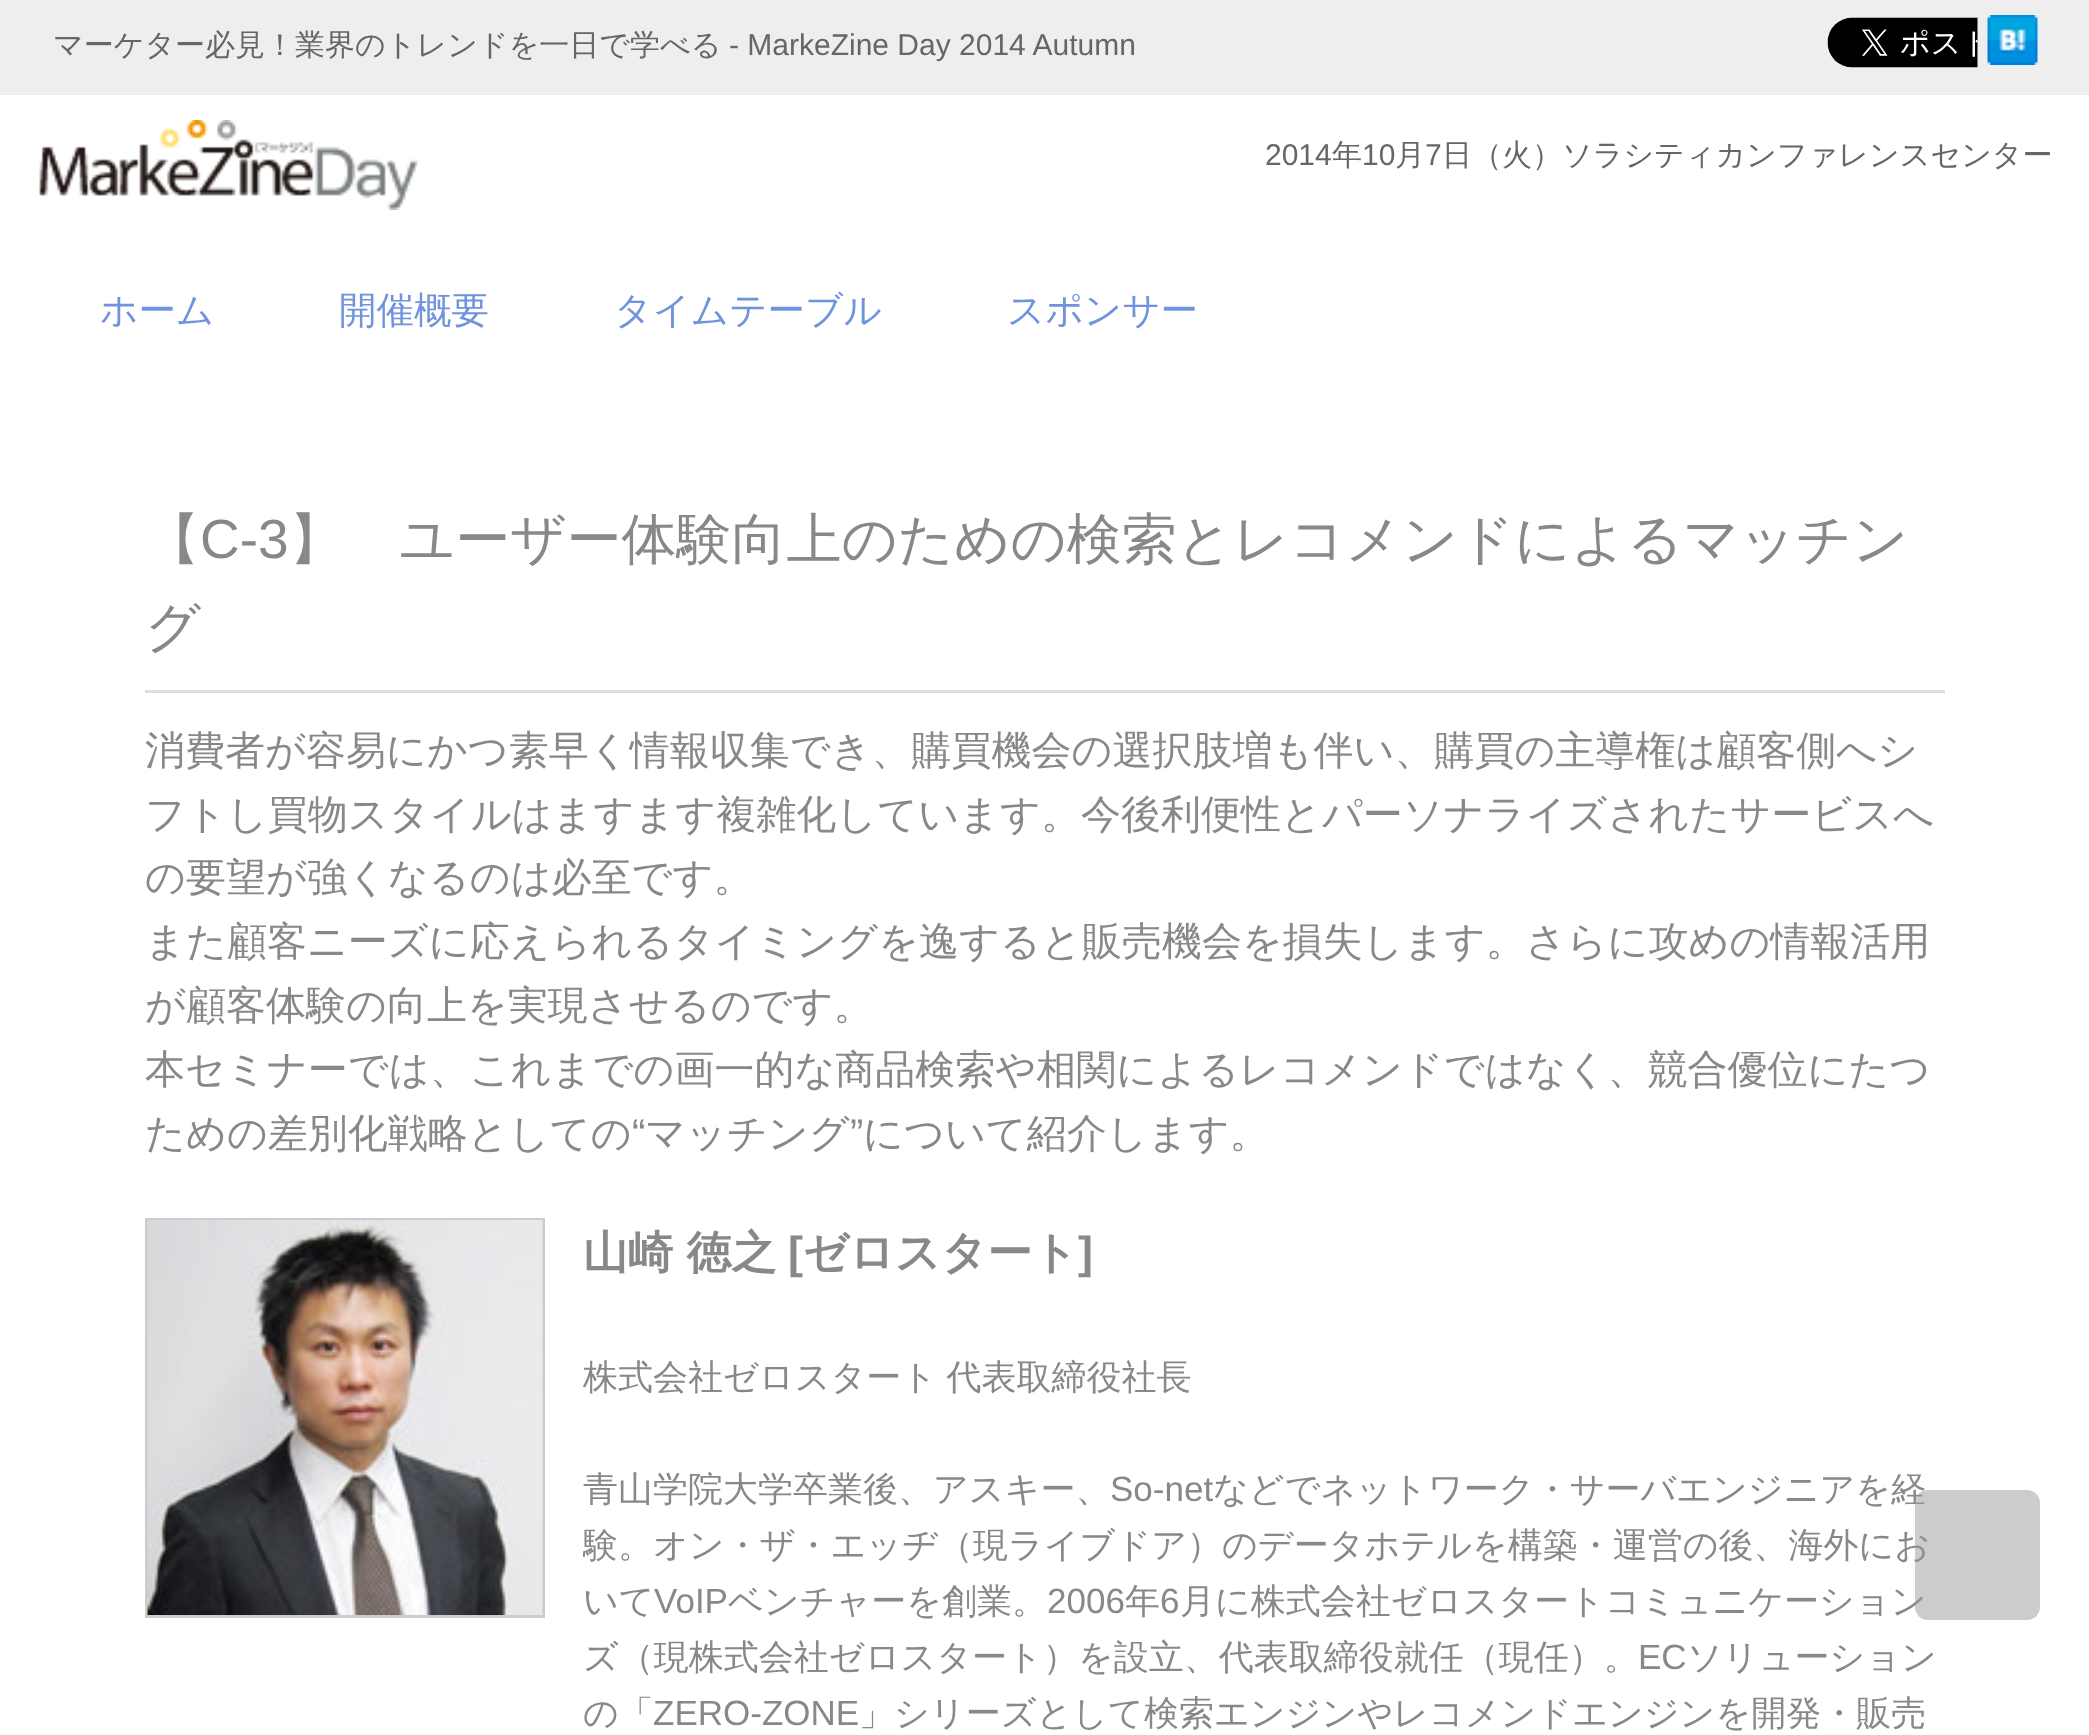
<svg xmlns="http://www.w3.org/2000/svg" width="2089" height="1735">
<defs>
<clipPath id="clip1"><rect x="583" y="1350" width="1362" height="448"/></clipPath>
</defs>
<rect width="100%" height="100%" fill="#fff"/>
<rect width="2089" height="95" fill="#eee"/>
<text x="53" y="55" style="font-family:WenQuanYi Zen Hei;font-size:30px;font-weight:500;fill:#666">マーケター必見！業界のトレンドを一日で学べる</text>
<text x="729" y="55" style="font-family:Liberation Sans;font-size:30px;fill:#666">- MarkeZine Day 2014 Autumn</text>
<image x="1827" y="17" width="151" height="51" href="media/1.png"/>
<image x="1987" y="15" width="51" height="50" href="media/2.png"/>
<image x="39" y="120" width="379" height="90" href="media/3.png"/>
<text x="1265" y="165" style="font-family:Liberation Sans;font-size:30px;fill:#666">2014</text>
<text x="1332" y="165" style="font-family:WenQuanYi Zen Hei;font-size:30px;font-weight:500;fill:#666">年</text>
<text x="1362" y="165" style="font-family:Liberation Sans;font-size:30px;fill:#666">10</text>
<text x="1395" y="165" style="font-family:WenQuanYi Zen Hei;font-size:30px;font-weight:500;fill:#666">月</text>
<text x="1425" y="165" style="font-family:Liberation Sans;font-size:30px;fill:#666">7</text>
<text x="1442" y="165" style="font-family:WenQuanYi Zen Hei;font-size:30px;font-weight:500;fill:#666">日（火）ソラシティカンファレンスセンター</text>
<text x="100" y="323" style="font-family:WenQuanYi Zen Hei;font-size:37.5px;font-weight:500;fill:#7093dd">ホーム</text>
<text x="339" y="323" style="font-family:WenQuanYi Zen Hei;font-size:37.5px;font-weight:500;fill:#7093dd">開催概要</text>
<text x="614" y="323" style="font-family:WenQuanYi Zen Hei;font-size:37.5px;font-weight:500;fill:#7093dd">タイムテーブル</text>
<text x="1007" y="323" style="font-family:WenQuanYi Zen Hei;font-size:37.5px;font-weight:500;fill:#7093dd">スポンサー</text>
<rect x="145" y="690" width="1800" height="3" fill="#ddd"/>
<text x="145" y="558" style="font-family:WenQuanYi Zen Hei;font-size:55px;font-weight:500;fill:#888">【</text>
<text x="200" y="558" style="font-family:Liberation Sans;font-size:55px;fill:#888">C-3</text>
<text x="289" y="558" style="font-family:WenQuanYi Zen Hei;font-size:55px;font-weight:500;fill:#888">】　ユーザー体験向上のための検索とレコメンドによるマッチン</text>
<text x="145" y="646" style="font-family:WenQuanYi Zen Hei;font-size:55px;font-weight:500;fill:#888">グ</text>
<text x="145" y="764" style="font-family:WenQuanYi Zen Hei;font-size:40px;font-weight:500;fill:#888">消費者が容易にかつ素早く情報収集でき、購買機会の選択肢増も伴い、購買の主導権は顧客側へシ</text>
<text x="145" y="828" style="font-family:WenQuanYi Zen Hei;font-size:40px;font-weight:500;fill:#888">フトし買物スタイルはますます複雑化しています。今後利便性とパーソナライズされたサービスへ</text>
<text x="145" y="891" style="font-family:WenQuanYi Zen Hei;font-size:40px;font-weight:500;fill:#888">の要望が強くなるのは必至です。</text>
<text x="145" y="955" style="font-family:WenQuanYi Zen Hei;font-size:40px;font-weight:500;fill:#888">また顧客ニーズに応えられるタイミングを逸すると販売機会を損失します。さらに攻めの情報活用</text>
<text x="145" y="1019" style="font-family:WenQuanYi Zen Hei;font-size:40px;font-weight:500;fill:#888">が顧客体験の向上を実現させるのです。</text>
<text x="145" y="1083" style="font-family:WenQuanYi Zen Hei;font-size:40px;font-weight:500;fill:#888">本セミナーでは、これまでの画一的な商品検索や相関によるレコメンドではなく、競合優位にたつ</text>
<text x="145" y="1147" style="font-family:WenQuanYi Zen Hei;font-size:40px;font-weight:500;fill:#888">ための差別化戦略としての</text>
<text x="632" y="1147" style="font-family:Liberation Sans;font-size:40px;fill:#888">“</text>
<text x="645" y="1147" style="font-family:WenQuanYi Zen Hei;font-size:40px;font-weight:500;fill:#888">マッチング</text>
<text x="850" y="1147" style="font-family:Liberation Sans;font-size:40px;fill:#888">”</text>
<text x="863" y="1147" style="font-family:WenQuanYi Zen Hei;font-size:40px;font-weight:500;fill:#888">について紹介します。</text>
<rect x="146.5" y="1219.5" width="397" height="397" fill="none" stroke="#ccc" stroke-width="3"/>
<image x="147" y="1220" width="396" height="395" href="media/4.png"/>
<text x="583" y="1268" style="font-family:WenQuanYi Zen Hei;font-size:45px;font-weight:bold;fill:#888">山崎 徳之</text>
<text x="788" y="1268" style="font-family:Liberation Sans;font-size:45px;font-weight:bold;fill:#888">[</text>
<text x="803" y="1268" style="font-family:WenQuanYi Zen Hei;font-size:45px;font-weight:bold;fill:#888">ゼロスタート</text>
<text x="1078" y="1268" style="font-family:Liberation Sans;font-size:45px;font-weight:bold;fill:#888">]</text>
<text x="583" y="1389" word-spacing="-1" style="font-family:WenQuanYi Zen Hei;font-size:35px;font-weight:500;fill:#888">株式会社ゼロスタート 代表取締役社長</text>
<text x="583" y="1501" style="font-family:WenQuanYi Zen Hei;font-size:35px;font-weight:500;fill:#888">青山学院大学卒業後、アスキー、</text>
<text x="1110" y="1501" style="font-family:Liberation Sans;font-size:35px;fill:#888">So-net</text>
<text x="1213" y="1501" style="font-family:WenQuanYi Zen Hei;font-size:35px;font-weight:500;fill:#888">などでネットワーク・サーバエンジニアを経</text>
<g clip-path="url(#clip1)">
<text x="583" y="1557" style="font-family:WenQuanYi Zen Hei;font-size:35px;font-weight:500;fill:#888">験。オン・ザ・エッヂ（現ライブドア）のデータホテルを構築・運営の後、海外にお</text>
</g>
<text x="583" y="1613" style="font-family:WenQuanYi Zen Hei;font-size:35px;font-weight:500;fill:#888">いて</text>
<text x="654" y="1613" style="font-family:Liberation Sans;font-size:35px;fill:#888">VoIP</text>
<text x="728" y="1613" style="font-family:WenQuanYi Zen Hei;font-size:35px;font-weight:500;fill:#888">ベンチャーを創業。</text>
<text x="1047" y="1613" style="font-family:Liberation Sans;font-size:35px;fill:#888">2006</text>
<text x="1125" y="1613" style="font-family:WenQuanYi Zen Hei;font-size:35px;font-weight:500;fill:#888">年</text>
<text x="1160" y="1613" style="font-family:Liberation Sans;font-size:35px;fill:#888">6</text>
<text x="1180" y="1613" style="font-family:WenQuanYi Zen Hei;font-size:35px;font-weight:500;fill:#888">月に株式会社ゼロスタートコミュニケーション</text>
<text x="583" y="1669" style="font-family:WenQuanYi Zen Hei;font-size:35px;font-weight:500;fill:#888">ズ（現株式会社ゼロスタート）を設立、代表取締役就任（現任）。</text>
<text x="1638" y="1669" style="font-family:Liberation Sans;font-size:35px;fill:#888">EC</text>
<text x="1687" y="1669" style="font-family:WenQuanYi Zen Hei;font-size:35px;font-weight:500;fill:#888">ソリューション</text>
<text x="583" y="1725" style="font-family:WenQuanYi Zen Hei;font-size:35px;font-weight:500;fill:#888">の「</text>
<text x="653" y="1725" style="font-family:Liberation Sans;font-size:35px;fill:#888">ZERO-ZONE</text>
<text x="859" y="1725" style="font-family:WenQuanYi Zen Hei;font-size:35px;font-weight:500;fill:#888">」シリーズとして検索エンジンやレコメンドエンジンを開発・販売</text>
<rect x="1915" y="1490" width="125" height="130" rx="13" fill="#99999980"/>
</svg>
